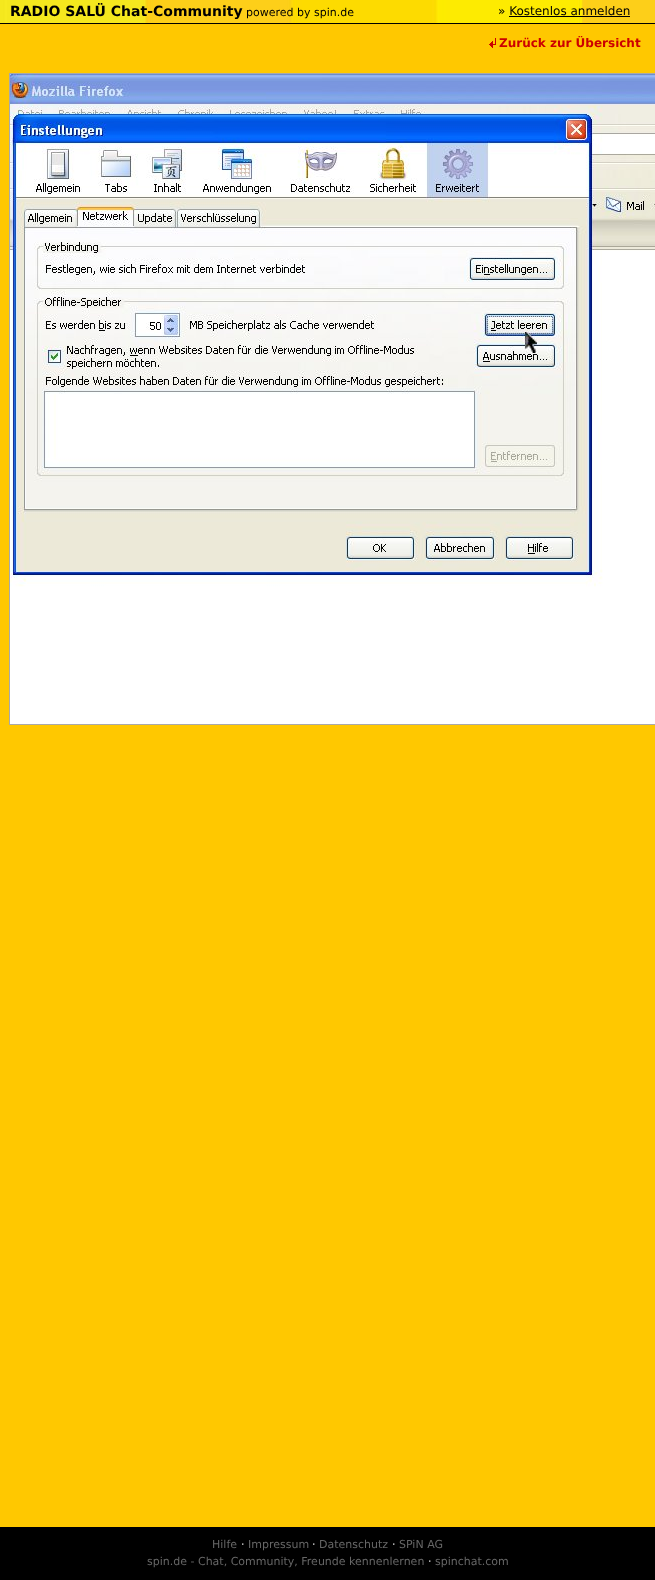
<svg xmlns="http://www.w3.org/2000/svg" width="655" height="1580">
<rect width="100%" height="100%" fill="#ffc800"/>
<image x="0" y="0" width="655" height="23" href="media/1.png"/>
<rect y="23" width="655" height="1" fill="#000"/>
<text x="10" y="16" style="font-family:DejaVu Sans;font-size:14px;font-weight:bold;fill:#000">RADIO SALÜ Chat-Community</text>
<text x="246" y="16" style="font-family:DejaVu Sans;font-size:11px;fill:#000">powered by spin.de</text>
<text x="498" y="15" style="font-family:DejaVu Sans;font-size:12px;fill:#000">» Kostenlos anmelden</text>
<rect x="509" y="16" width="121" height="1" fill="#000"/>
<image x="489" y="38" width="7" height="10" href="media/2.png"/>
<text x="499" y="47" style="font-family:DejaVu Sans;font-size:12px;font-weight:bold;fill:#c00">Zurück zur Übersicht</text>
<rect x="9.5" y="73.5" width="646" height="651" fill="none" stroke="#a9a9a9"/>
<image x="10" y="74" width="645" height="650" href="media/3.png"/>
<rect y="1527" width="655" height="53" fill="#000"/>
<text x="212" y="1548" style="font-family:DejaVu Sans;font-size:11px;fill:#666">Hilfe</text>
<text x="241" y="1548" style="font-family:DejaVu Sans;font-size:11px;fill:#fff">·</text>
<text x="248" y="1548" style="font-family:DejaVu Sans;font-size:11px;fill:#666">Impressum</text>
<text x="312" y="1548" style="font-family:DejaVu Sans;font-size:11px;fill:#fff">·</text>
<text x="319" y="1548" style="font-family:DejaVu Sans;font-size:11px;fill:#666">Datenschutz</text>
<text x="392" y="1548" style="font-family:DejaVu Sans;font-size:11px;fill:#fff">·</text>
<text x="399" y="1548" style="font-family:DejaVu Sans;font-size:11px;fill:#666">SPiN AG</text>
<text x="147" y="1565" style="font-family:DejaVu Sans;font-size:11px;fill:#666">spin.de - Chat, Community, Freunde kennenlernen</text>
<text x="428" y="1565" style="font-family:DejaVu Sans;font-size:11px;fill:#fff">·</text>
<text x="435" y="1565" style="font-family:DejaVu Sans;font-size:11px;fill:#666">spinchat.com</text>
</svg>
